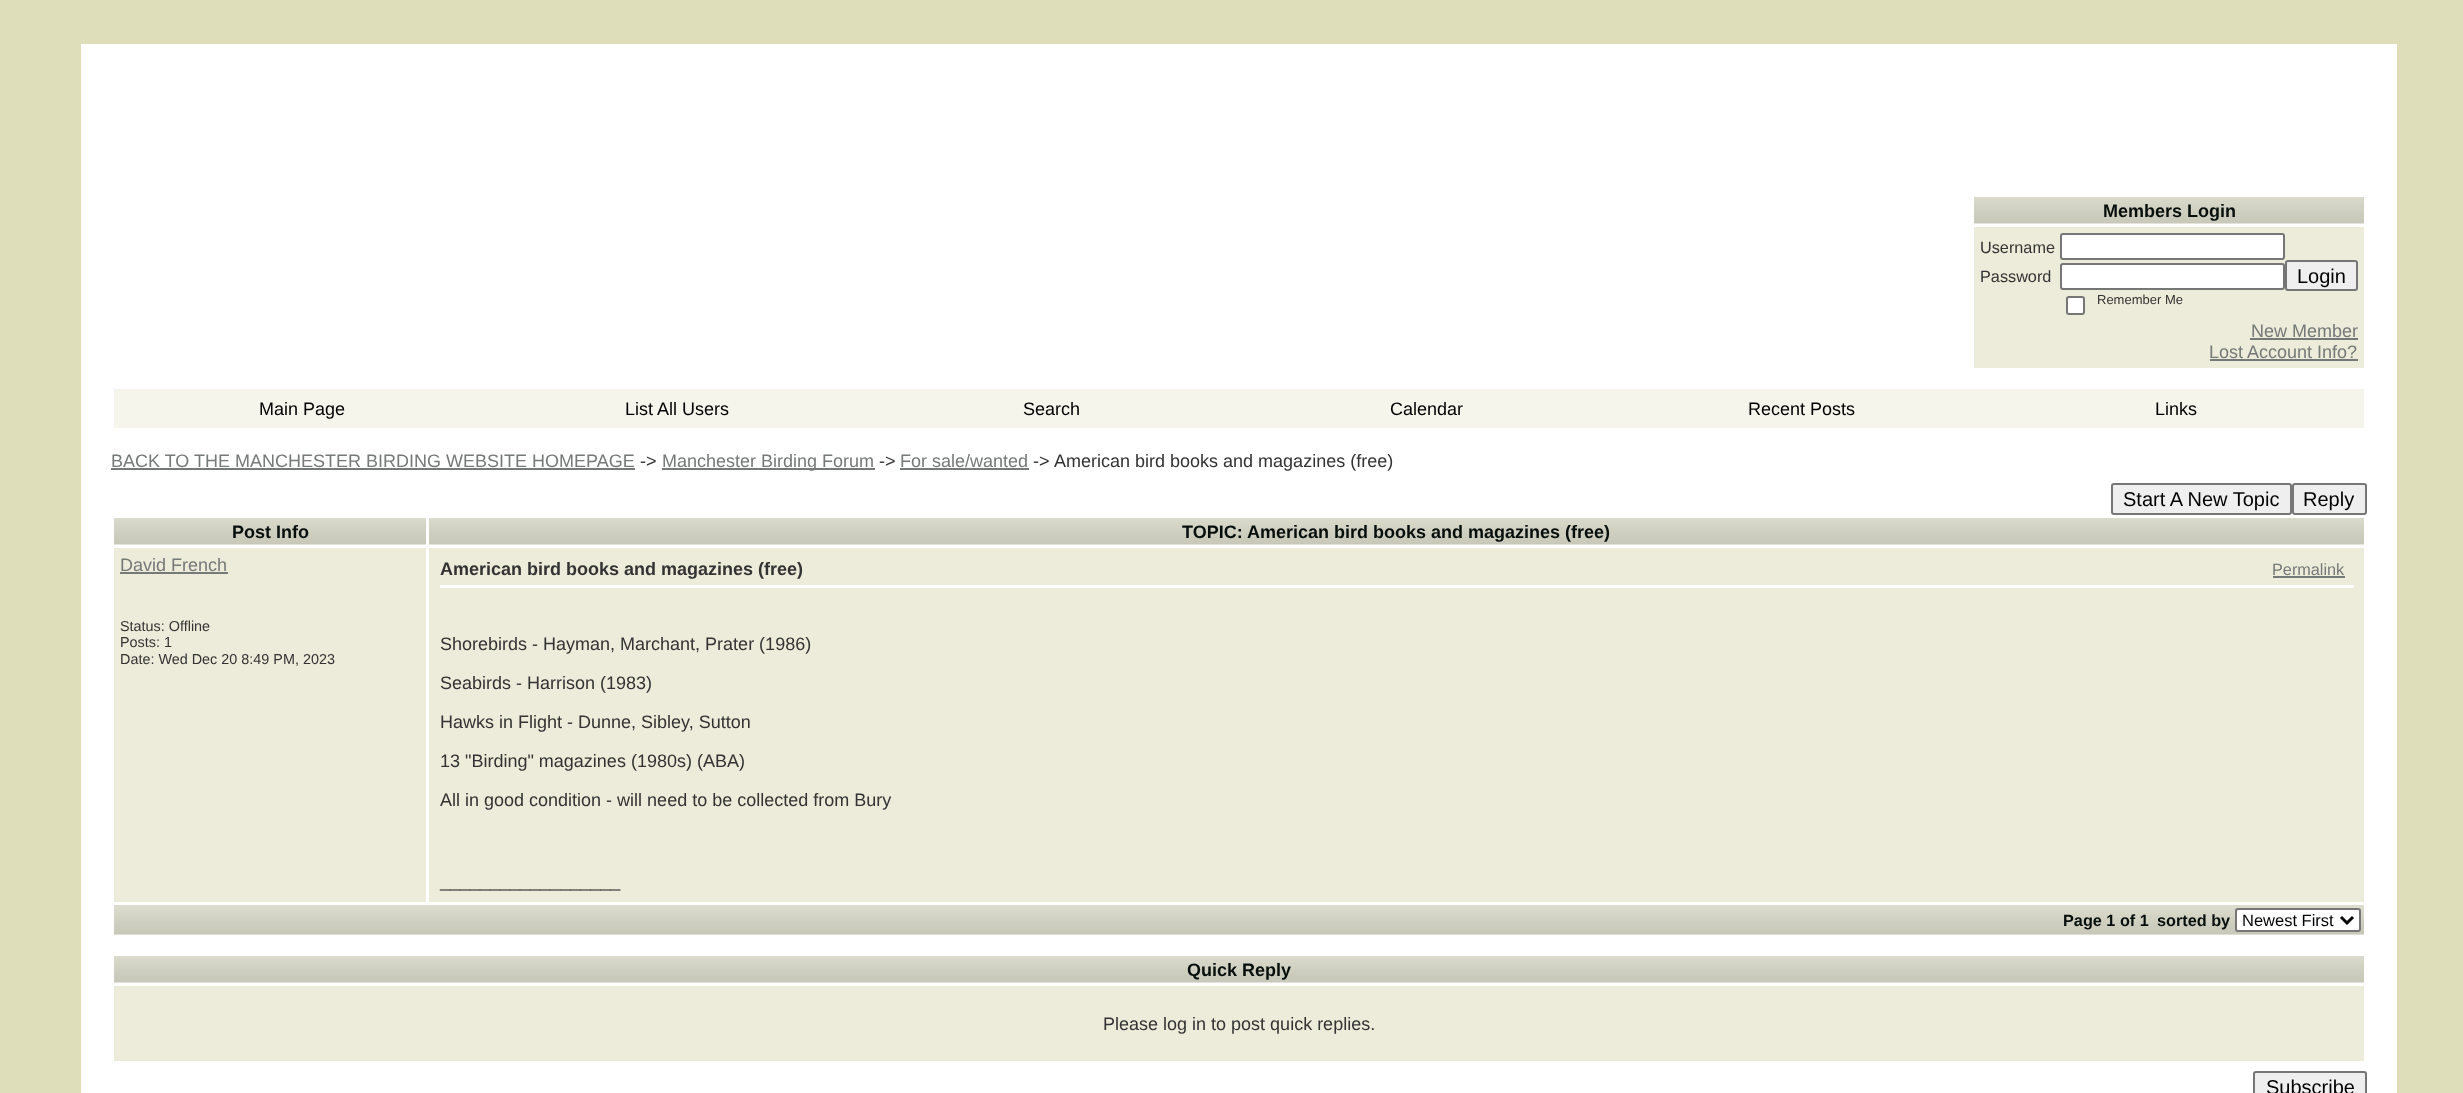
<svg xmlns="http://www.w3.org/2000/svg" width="2463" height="1093">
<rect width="100%" height="100%" fill="#dedeba"/>
<rect x="81" y="44" width="2316" height="1049" fill="#fff"/>
<image x="1974" y="197" width="390" height="27" href="media/1.png"/>
<text x="2103" y="217" style="font-family:Liberation Sans;font-size:18px;font-weight:bold;fill:#070f0d">Members Login</text>
<rect x="1974" y="227" width="390" height="141" fill="#edebda"/>
<text x="1980" y="253" style="font-family:Liberation Sans;font-size:16.25px;fill:#333">Username</text>
<rect x="2061" y="234" width="223" height="25" rx="2" fill="#fff" stroke="#767676" stroke-width="2"/>
<text x="1980" y="282" style="font-family:Liberation Sans;font-size:16.25px;fill:#333">Password</text>
<rect x="2061" y="264" width="223" height="25" rx="2" fill="#fff" stroke="#767676" stroke-width="2"/>
<rect x="2286" y="261" width="71" height="29" rx="2" fill="#efefef" stroke="#767676" stroke-width="2"/>
<text x="2297" y="283" style="font-family:Liberation Sans;font-size:20px;fill:#000">Login</text>
<rect x="2067" y="297" width="17" height="17" rx="2" fill="#fff" stroke="#767676" stroke-width="2"/>
<text x="2097" y="304" style="font-family:Liberation Sans;font-size:13px;fill:#333">Remember Me</text>
<text x="2251" y="337" style="font-family:Liberation Sans;font-size:18px;fill:#757978">New Member</text>
<rect x="2250" y="338" width="108" height="2" fill="#757978"/>
<text x="2209" y="358" style="font-family:Liberation Sans;font-size:18px;fill:#757978">Lost Account Info?</text>
<rect x="2210" y="359" width="148" height="2" fill="#757978"/>
<rect x="114" y="389" width="2250" height="39" fill="#f6f5eb"/>
<text x="259" y="415" style="font-family:Liberation Sans;font-size:18px;fill:#000">Main Page</text>
<text x="625" y="415" style="font-family:Liberation Sans;font-size:18px;fill:#000">List All Users</text>
<text x="1023" y="415" style="font-family:Liberation Sans;font-size:18px;fill:#000">Search</text>
<text x="1390" y="415" style="font-family:Liberation Sans;font-size:18px;fill:#000">Calendar</text>
<text x="1748" y="415" style="font-family:Liberation Sans;font-size:18px;fill:#000">Recent Posts</text>
<text x="2155" y="415" style="font-family:Liberation Sans;font-size:18px;fill:#000">Links</text>
<text x="111" y="467" style="font-family:Liberation Sans;font-size:18px;fill:#757978">BACK TO THE MANCHESTER BIRDING WEBSITE HOMEPAGE</text>
<rect x="111" y="468" width="524" height="2" fill="#757978"/>
<text x="640" y="467" style="font-family:Liberation Sans;font-size:18px;fill:#333">-&gt;</text>
<rect x="662" y="468" width="213" height="2" fill="#757978"/>
<text x="662" y="467" style="font-family:Liberation Sans;font-size:18px;fill:#757978">Manchester Birding Forum</text>
<text x="879" y="467" style="font-family:Liberation Sans;font-size:18px;fill:#333">-&gt;</text>
<text x="900" y="467" style="font-family:Liberation Sans;font-size:18px;fill:#757978">For sale/wanted</text>
<rect x="900" y="468" width="129" height="2" fill="#757978"/>
<text x="1033" y="467" style="font-family:Liberation Sans;font-size:18px;fill:#333">-&gt;</text>
<text x="1054" y="467" style="font-family:Liberation Sans;font-size:18px;fill:#333">American bird books and magazines (free)</text>
<rect x="2112" y="484" width="179" height="30" rx="2" fill="#efefef" stroke="#767676" stroke-width="2"/>
<text x="2123" y="506" style="font-family:Liberation Sans;font-size:20px;fill:#000">Start A New Topic</text>
<rect x="2293" y="484" width="73" height="30" rx="2" fill="#efefef" stroke="#767676" stroke-width="2"/>
<text x="2303" y="506" style="font-family:Liberation Sans;font-size:20px;fill:#000">Reply</text>
<image x="114" y="518" width="312" height="27" href="media/2.png"/>
<text x="232" y="538" style="font-family:Liberation Sans;font-size:18px;font-weight:bold;fill:#070f0d">Post Info</text>
<image x="429" y="518" width="1935" height="27" href="media/3.png"/>
<text x="1182" y="538" style="font-family:Liberation Sans;font-size:18px;font-weight:bold;fill:#070f0d">TOPIC: American bird books and magazines (free)</text>
<rect x="114" y="548" width="312" height="354" fill="#edebda"/>
<text x="120" y="571" style="font-family:Liberation Sans;font-size:18px;fill:#757978">David French</text>
<rect x="120" y="572" width="108" height="2" fill="#757978"/>
<text x="120" y="631" style="font-family:Liberation Sans;font-size:14.4px;fill:#333">Status: Offline</text>
<text x="120" y="647" style="font-family:Liberation Sans;font-size:14.4px;fill:#333">Posts: 1</text>
<text x="120" y="664" style="font-family:Liberation Sans;font-size:14.4px;fill:#333">Date: Wed Dec 20 8:49 PM, 2023</text>
<rect x="429" y="548" width="1935" height="354" fill="#edebda"/>
<text x="440" y="575" style="font-family:Liberation Sans;font-size:18px;font-weight:bold;fill:#333">American bird books and magazines (free)</text>
<text x="2272" y="575" style="font-family:Liberation Sans;font-size:16.25px;fill:#757978">Permalink</text>
<rect x="2273" y="576" width="72" height="2" fill="#757978"/>
<rect x="440" y="585" width="1914" height="3" fill="#fff"/>
<text x="440" y="650" style="font-family:Liberation Sans;font-size:18px;fill:#333">Shorebirds - Hayman, Marchant, Prater (1986)</text>
<text x="440" y="689" style="font-family:Liberation Sans;font-size:18px;fill:#333">Seabirds - Harrison (1983)</text>
<text x="440" y="728" style="font-family:Liberation Sans;font-size:18px;fill:#333">Hawks in Flight - Dunne, Sibley, Sutton</text>
<text x="440" y="767" style="font-family:Liberation Sans;font-size:18px;fill:#333">13 "Birding" magazines (1980s) (ABA)</text>
<text x="440" y="806" style="font-family:Liberation Sans;font-size:18px;fill:#333">All in good condition - will need to be collected from Bury</text>
<text x="440" y="887" style="font-family:Liberation Sans;font-size:18px;fill:#333">__________________</text>
<rect x="114" y="934" width="2250" height="1" fill="#f5f4eb"/>
<image x="114" y="905" width="2250" height="30" href="media/4.png"/>
<text x="2063" y="926" style="font-family:Liberation Sans;font-size:16.25px;font-weight:bold;fill:#070f0d">Page 1 of 1</text>
<text x="2157" y="926" style="font-family:Liberation Sans;font-size:16.25px;font-weight:bold;fill:#070f0d">sorted by</text>
<rect x="2236" y="909" width="124" height="22" rx="2" fill="#fff" stroke="#767676" stroke-width="2"/>
<path d="M2341 917l6 6l6-6" fill="none" stroke="#000" stroke-width="3"/>
<text x="2242" y="926" style="font-family:Liberation Sans;font-size:16.5px;fill:#000">Newest First</text>
<image x="114" y="956" width="2250" height="27" href="media/5.png"/>
<text x="1187" y="976" style="font-family:Liberation Sans;font-size:18px;font-weight:bold;fill:#070f0d">Quick Reply</text>
<rect x="114" y="986" width="2250" height="75" fill="#edebda"/>
<text x="1103" y="1030" style="font-family:Liberation Sans;font-size:18px;fill:#333">Please log in to post quick replies.</text>
<rect x="2254" y="1072" width="112" height="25" rx="2" fill="#efefef" stroke="#767676" stroke-width="2"/>
<text x="2266" y="1094" style="font-family:Liberation Sans;font-size:20px;fill:#000">Subscribe</text>
</svg>
